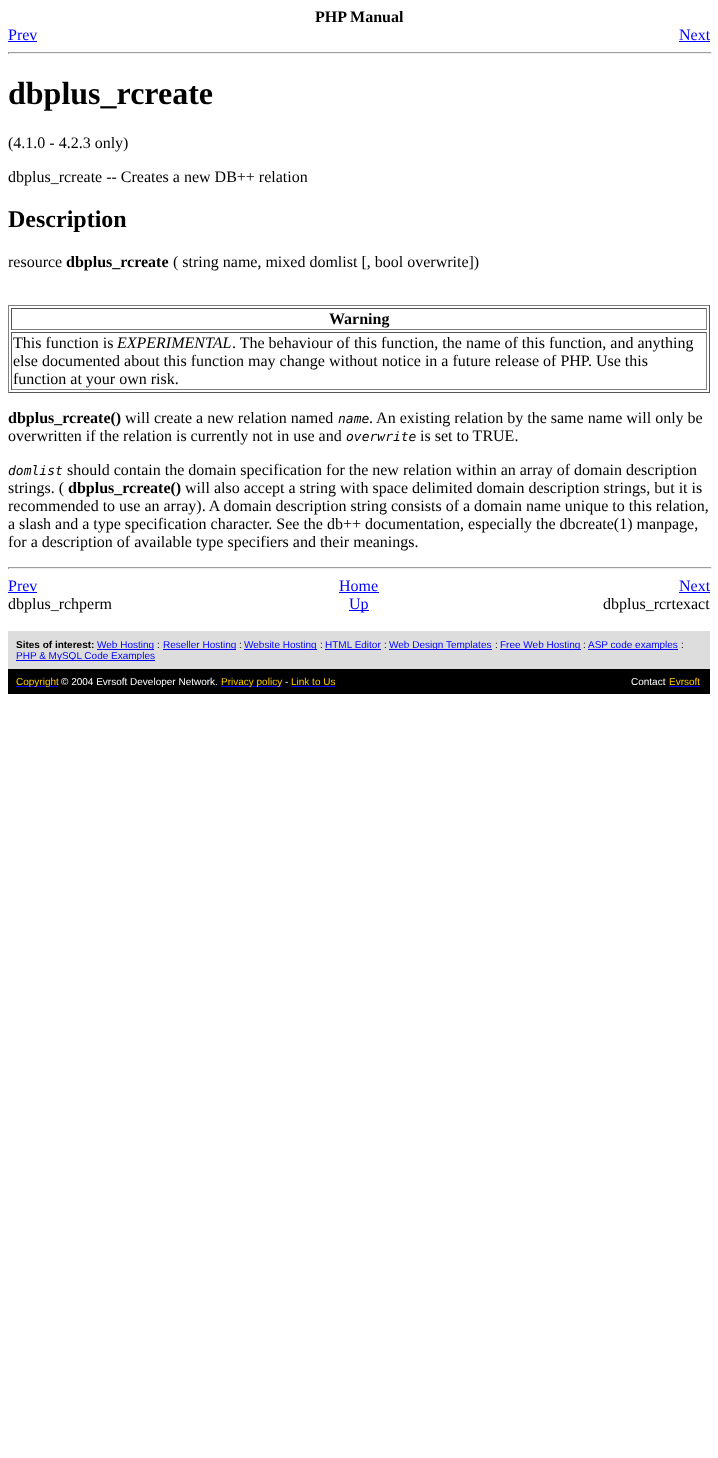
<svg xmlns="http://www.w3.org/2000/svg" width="718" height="1458">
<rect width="100%" height="100%" fill="#fff"/>
<text x="315" y="22" style="font-family:Liberation Serif;font-size:16px;font-weight:bold;fill:#000">PHP Manual</text>
<text x="8" y="40" style="font-family:Liberation Serif;font-size:16px;fill:#00f">Prev</text>
<rect x="8" y="41" width="29" height="1" fill="#00f"/>
<text x="679" y="40" style="font-family:Liberation Serif;font-size:16px;fill:#00f">Next</text>
<rect x="679" y="41" width="31" height="1" fill="#00f"/>
<rect x="8" y="52" width="704" height="1" fill="#9f9f9f"/>
<rect x="711" y="52" width="1" height="2" fill="#eee"/>
<rect x="8" y="53" width="704" height="1" fill="#eee"/>
<rect x="8" y="52" width="1" height="2" fill="#9f9f9f"/>
<text x="8" y="104" style="font-family:Liberation Serif;font-size:32px;font-weight:bold;fill:#000">dbplus_rcreate</text>
<text x="8" y="148" style="font-family:Liberation Serif;font-size:16px;fill:#000">(4.1.0 - 4.2.3 only)</text>
<text x="8" y="182" style="font-family:Liberation Serif;font-size:16px;fill:#000">dbplus_rcreate -- Creates a new DB++ relation</text>
<text x="8" y="227" style="font-family:Liberation Serif;font-size:24px;font-weight:bold;fill:#000">Description</text>
<text x="8" y="267" style="font-family:Liberation Serif;font-size:16px;fill:#000">resource</text>
<text x="66" y="267" style="font-family:Liberation Serif;font-size:16px;font-weight:bold;fill:#000">dbplus_rcreate</text>
<text x="173" y="267" style="font-family:Liberation Serif;font-size:16px;fill:#000">( string name, mixed domlist [, bool overwrite])</text>
<rect x="8" y="305" width="702" height="1" fill="#808080"/>
<rect x="709" y="305" width="1" height="88" fill="#555"/>
<rect x="8" y="392" width="702" height="1" fill="#555"/>
<rect x="8" y="305" width="1" height="88" fill="#808080"/>
<rect x="11" y="308" width="696" height="1" fill="#555"/>
<rect x="706" y="308" width="1" height="22" fill="#808080"/>
<rect x="11" y="329" width="696" height="1" fill="#808080"/>
<rect x="11" y="308" width="1" height="22" fill="#555"/>
<text x="329" y="324" style="font-family:Liberation Serif;font-size:16px;font-weight:bold;fill:#000">Warning</text>
<rect x="11" y="332" width="696" height="1" fill="#555"/>
<rect x="706" y="332" width="1" height="58" fill="#808080"/>
<rect x="11" y="389" width="696" height="1" fill="#808080"/>
<rect x="11" y="332" width="1" height="58" fill="#555"/>
<text x="13" y="348" style="font-family:Liberation Serif;font-size:16px;fill:#000">This function is</text>
<text x="117" y="348" style="font-family:Liberation Serif;font-size:16px;font-style:italic;fill:#000">EXPERIMENTAL</text>
<text x="232" y="348" style="font-family:Liberation Serif;font-size:16px;fill:#000">. The behaviour of this function, the name of this function, and anything</text>
<text x="13" y="366" style="font-family:Liberation Serif;font-size:16px;fill:#000">else documented about this function may change without notice in a future release of PHP. Use this</text>
<text x="13" y="384" style="font-family:Liberation Serif;font-size:16px;fill:#000">function at your own risk.</text>
<text x="8" y="423" style="font-family:Liberation Serif;font-size:16px;font-weight:bold;fill:#000">dbplus_rcreate()</text>
<text x="125" y="423" style="font-family:Liberation Serif;font-size:16px;fill:#000">will create a new relation named</text>
<text x="338" y="423" style="font-family:DejaVu Sans Mono;font-size:13px;font-style:italic;fill:#000">name</text>
<text x="369" y="423" style="font-family:Liberation Serif;font-size:16px;fill:#000">. An existing relation by the same name will only be</text>
<text x="8" y="441" style="font-family:Liberation Serif;font-size:16px;fill:#000">overwritten if the relation is currently not in use and</text>
<text x="346" y="441" style="font-family:DejaVu Sans Mono;font-size:13px;font-style:italic;fill:#000">overwrite</text>
<text x="420" y="441" style="font-family:Liberation Serif;font-size:16px;fill:#000">is set to TRUE.</text>
<text x="8" y="475" style="font-family:DejaVu Sans Mono;font-size:13px;font-style:italic;fill:#000">domlist</text>
<text x="67" y="475" style="font-family:Liberation Serif;font-size:16px;fill:#000">should contain the domain specification for the new relation within an array of domain description</text>
<text x="8" y="493" style="font-family:Liberation Serif;font-size:16px;fill:#000">strings. (</text>
<text x="68" y="493" style="font-family:Liberation Serif;font-size:16px;font-weight:bold;fill:#000">dbplus_rcreate()</text>
<text x="185" y="493" style="font-family:Liberation Serif;font-size:16px;fill:#000">will also accept a string with space delimited domain description strings, but it is</text>
<text x="8" y="511" style="font-family:Liberation Serif;font-size:16px;fill:#000">recommended to use an array). A domain description string consists of a domain name unique to this relation,</text>
<text x="8" y="529" style="font-family:Liberation Serif;font-size:16px;fill:#000">a slash and a type specification character. See the db++ documentation, especially the dbcreate(1) manpage,</text>
<text x="8" y="547" style="font-family:Liberation Serif;font-size:16px;fill:#000">for a description of available type specifiers and their meanings.</text>
<rect x="8" y="567" width="704" height="1" fill="#9f9f9f"/>
<rect x="711" y="567" width="1" height="2" fill="#eee"/>
<rect x="8" y="568" width="704" height="1" fill="#eee"/>
<rect x="8" y="567" width="1" height="2" fill="#9f9f9f"/>
<text x="8" y="591" style="font-family:Liberation Serif;font-size:16px;fill:#00f">Prev</text>
<rect x="8" y="592" width="29" height="1" fill="#00f"/>
<text x="339" y="591" style="font-family:Liberation Serif;font-size:16px;fill:#00f">Home</text>
<rect x="339" y="592" width="40" height="1" fill="#00f"/>
<text x="679" y="591" style="font-family:Liberation Serif;font-size:16px;fill:#00f">Next</text>
<rect x="679" y="592" width="31" height="1" fill="#00f"/>
<text x="8" y="609" style="font-family:Liberation Serif;font-size:16px;fill:#000">dbplus_rchperm</text>
<rect x="349" y="610" width="20" height="1" fill="#00f"/>
<text x="349" y="609" style="font-family:Liberation Serif;font-size:16px;fill:#00f">Up</text>
<text x="603" y="609" style="font-family:Liberation Serif;font-size:16px;fill:#000">dbplus_rcrtexact</text>
<rect x="8" y="631" width="702" height="38" fill="#ddd"/>
<text x="16" y="648" style="font-family:Liberation Sans;font-size:10px;font-weight:bold;fill:#000">Sites of interest:</text>
<rect x="97" y="649" width="57" height="1" fill="#00f"/>
<text x="97" y="648" style="font-family:Liberation Sans;font-size:10px;fill:#00f">Web Hosting</text>
<text x="157" y="648" style="font-family:Liberation Sans;font-size:10px;fill:#000">:</text>
<rect x="163" y="649" width="73" height="1" fill="#00f"/>
<text x="163" y="648" style="font-family:Liberation Sans;font-size:10px;fill:#00f">Reseller Hosting</text>
<text x="239" y="648" style="font-family:Liberation Sans;font-size:10px;fill:#000">:</text>
<rect x="244" y="649" width="73" height="1" fill="#00f"/>
<text x="244" y="648" style="font-family:Liberation Sans;font-size:10px;fill:#00f">Website Hosting</text>
<text x="320" y="648" style="font-family:Liberation Sans;font-size:10px;fill:#000">:</text>
<text x="325" y="648" style="font-family:Liberation Sans;font-size:10px;fill:#00f">HTML Editor</text>
<rect x="325" y="649" width="56" height="1" fill="#00f"/>
<text x="384" y="648" style="font-family:Liberation Sans;font-size:10px;fill:#000">:</text>
<rect x="389" y="649" width="103" height="1" fill="#00f"/>
<text x="389" y="648" style="font-family:Liberation Sans;font-size:10px;fill:#00f">Web Design Templates</text>
<text x="495" y="648" style="font-family:Liberation Sans;font-size:10px;fill:#000">:</text>
<rect x="500" y="649" width="81" height="1" fill="#00f"/>
<text x="500" y="648" style="font-family:Liberation Sans;font-size:10px;fill:#00f">Free Web Hosting</text>
<text x="583" y="648" style="font-family:Liberation Sans;font-size:10px;fill:#000">:</text>
<rect x="588" y="649" width="90" height="1" fill="#00f"/>
<text x="588" y="648" style="font-family:Liberation Sans;font-size:10px;fill:#00f">ASP code examples</text>
<text x="681" y="648" style="font-family:Liberation Sans;font-size:10px;fill:#000">:</text>
<rect x="16" y="660" width="139" height="1" fill="#00f"/>
<text x="16" y="659" style="font-family:Liberation Sans;font-size:10px;fill:#00f">PHP &amp; MySQL Code Examples</text>
<rect x="8" y="669" width="702" height="25" fill="#000"/>
<rect x="16" y="686" width="42" height="1" fill="#00f"/>
<text x="16" y="685" style="font-family:Liberation Sans;font-size:10px;fill:#fc0">Copyright</text>
<text x="61" y="685" style="font-family:Liberation Sans;font-size:10px;fill:#fff">© 2004 Evrsoft Developer Network.</text>
<rect x="221" y="686" width="61" height="1" fill="#00f"/>
<text x="221" y="685" style="font-family:Liberation Sans;font-size:10px;fill:#fc0">Privacy policy</text>
<text x="285" y="685" style="font-family:Liberation Sans;font-size:10px;fill:#fff">-</text>
<text x="291" y="685" style="font-family:Liberation Sans;font-size:10px;fill:#fc0">Link to Us</text>
<rect x="291" y="686" width="44" height="1" fill="#00f"/>
<text x="631" y="685" style="font-family:Liberation Sans;font-size:10px;fill:#fff">Contact</text>
<text x="669" y="685" style="font-family:Liberation Sans;font-size:10px;fill:#fc0">Evrsoft</text>
<rect x="669" y="686" width="31" height="1" fill="#00f"/>
</svg>
